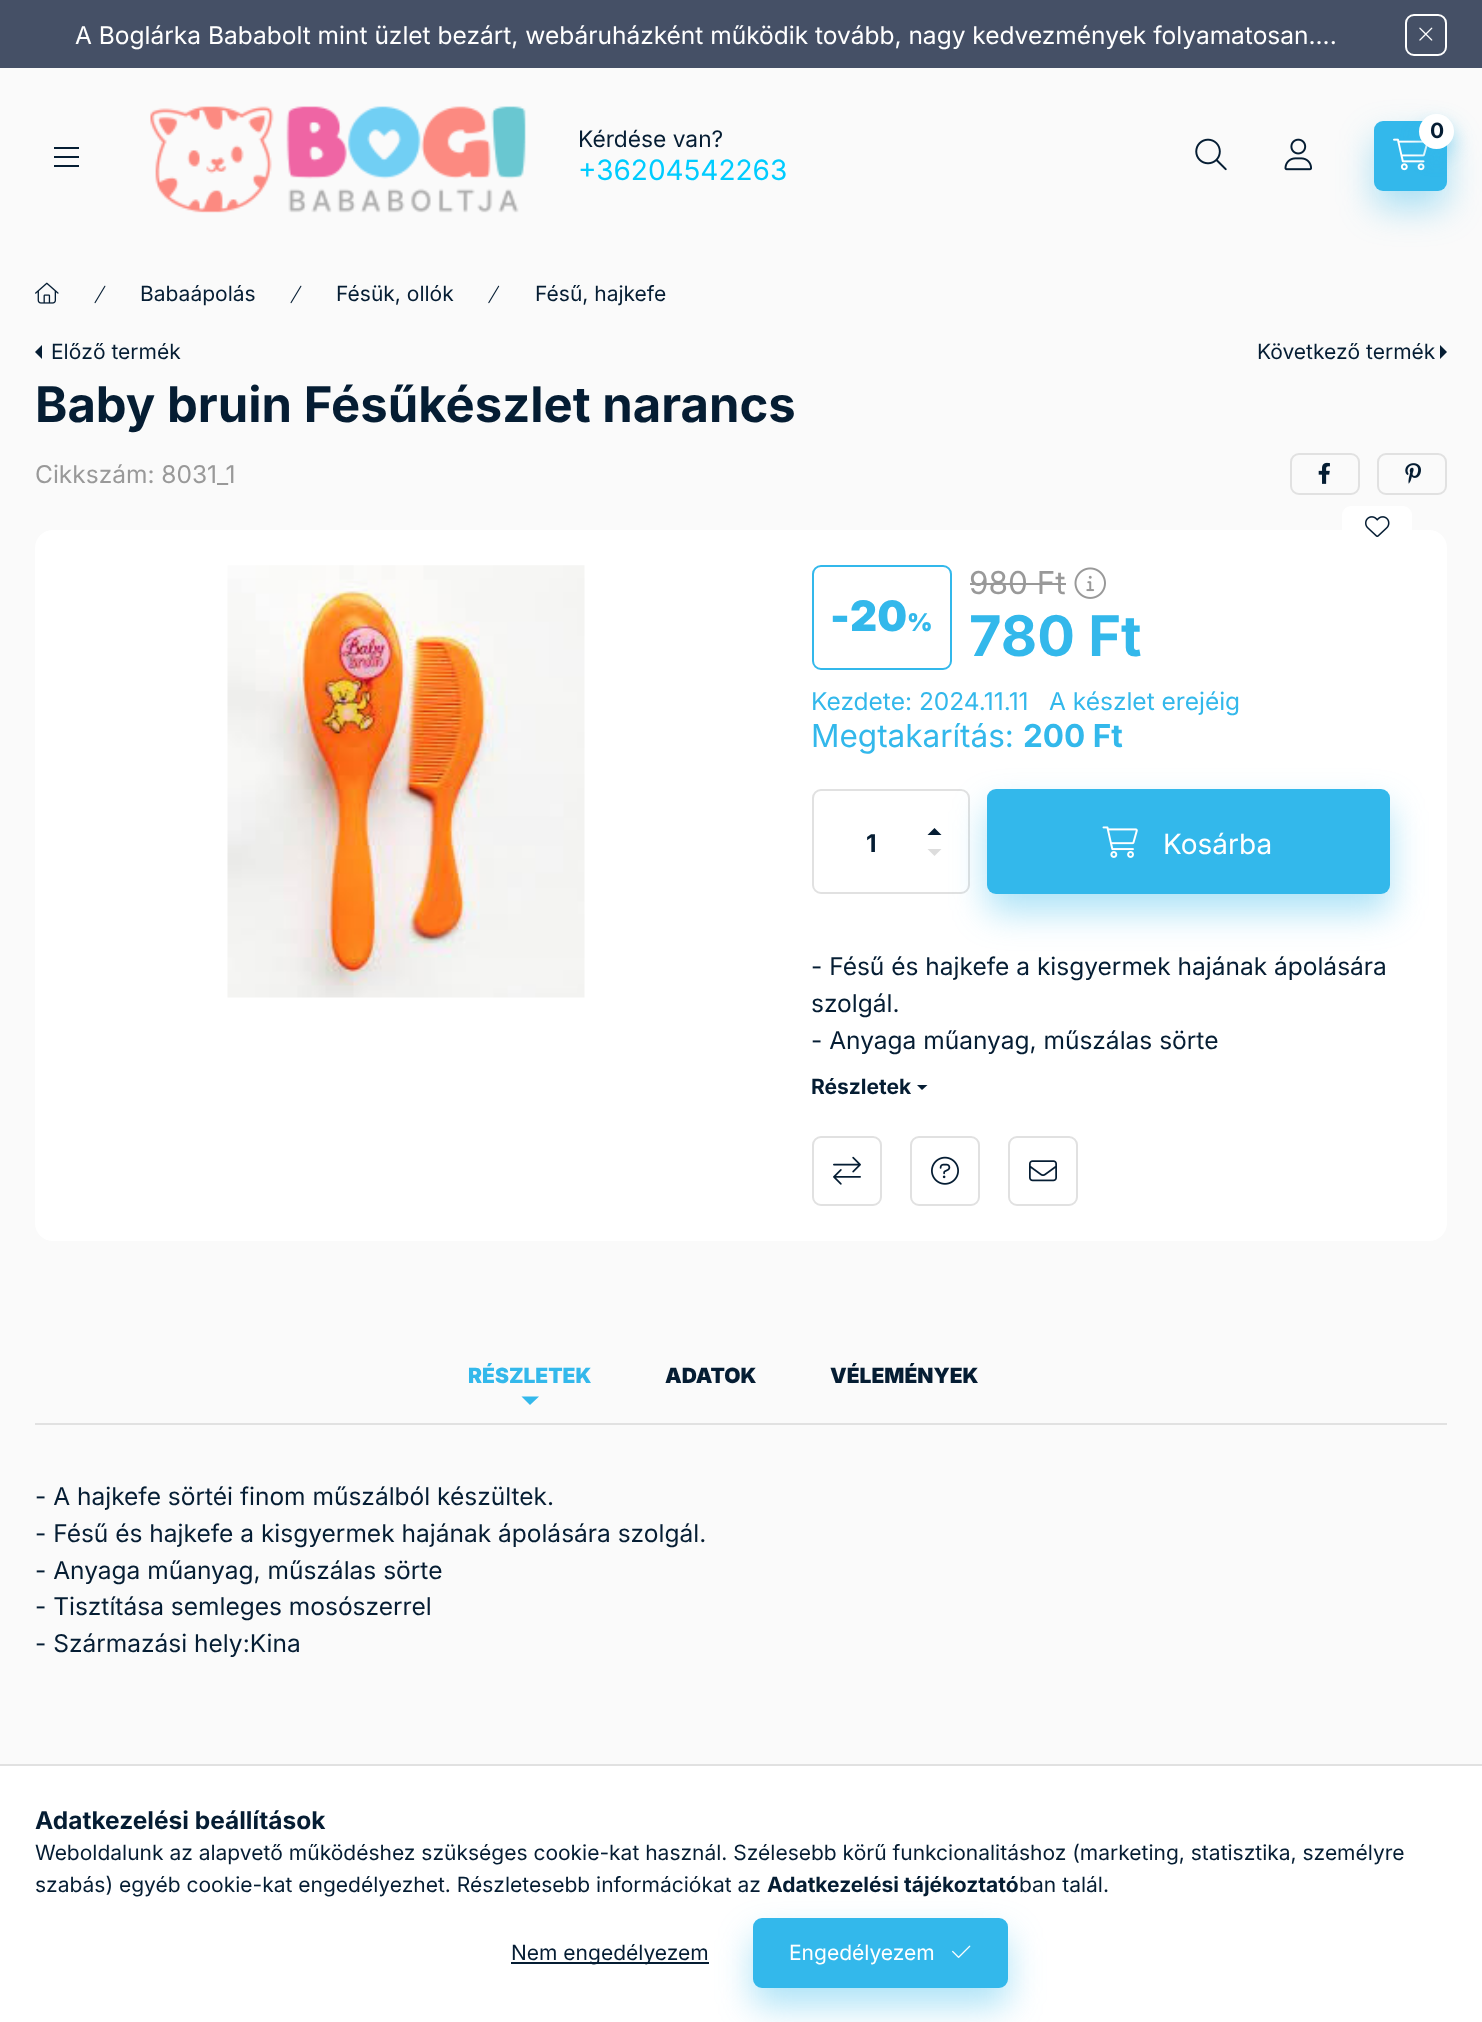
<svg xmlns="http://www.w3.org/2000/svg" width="1482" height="2022">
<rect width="100%" height="100%" fill="#fafafa"/>
<rect width="1482" height="68" fill="#455066"/>
<text x="75" y="44" style="font-family:Inter;font-size:24.5px;fill:#fff">A Boglárka Bababolt mint üzlet bezárt, webáruházként működik tovább, nagy kedvezmények folyamatosan....</text>
<rect x="1406" y="15" width="40" height="40" rx="8" fill="none" stroke="#fff" stroke-width="2"/>
<image x="1419" y="27" width="14" height="14" href="media/1.png"/>
<rect x="54" y="147" width="25" height="2" fill="#051d33"/>
<rect x="54" y="156" width="25" height="2" fill="#051d33"/>
<rect x="54" y="165" width="25" height="2" fill="#051d33"/>
<image x="150" y="106" width="376" height="107" href="media/2.png"/>
<text x="578" y="147" style="font-family:Inter;font-size:22.75px;fill:#051d33">Kérdése van?</text>
<text x="578" y="180" style="font-family:Inter;font-size:28px;fill:#0cf">+36204542263</text>
<rect x="1374" y="138" width="73" height="70" rx="9" fill="#33b8eb66" filter="blur(17.5px)"/>
<rect x="1374" y="121" width="73" height="70" rx="9" fill="#33b8eb"/>
<image x="1393" y="138" width="35" height="33" href="media/3.png"/>
<rect x="1419" y="123" width="35" height="35" rx="17.5" fill="#33b8eb66" filter="blur(9px)"/>
<circle cx="1436.5" cy="131.5" r="17.5" fill="#fff"/>
<text x="1430" y="138" style="font-family:Inter;font-size:21px;font-weight:bold;fill:#051d33">0</text>
<image x="1195" y="138" width="32" height="33" href="media/4.png"/>
<image x="1284" y="138" width="28" height="33" href="media/5.png"/>
<image x="35" y="282" width="24" height="22" href="media/6.png"/>
<image x="94" y="285" width="12" height="19" href="media/7.png"/>
<text x="140" y="301" style="font-family:Inter;font-size:21px;fill:#051d33">Babaápolás</text>
<image x="290" y="285" width="12" height="19" href="media/7.png"/>
<text x="336" y="301" style="font-family:Inter;font-size:21px;fill:#051d33">Fésük, ollók</text>
<image x="488" y="285" width="12" height="19" href="media/8.png"/>
<text x="535" y="301" style="font-family:Inter;font-size:21px;fill:#051d33">Fésű, hajkefe</text>
<path d="M42 359v-14l-7 7z" fill="#051d33"/>
<text x="51" y="359" style="font-family:Inter;font-size:21px;fill:#051d33">Előző termék</text>
<text x="1257" y="359" style="font-family:Inter;font-size:21px;fill:#051d33">Következő termék</text>
<path d="M1440 359v-14l7 7z" fill="#051d33"/>
<text x="35" y="422" style="font-family:Inter;font-size:49px;font-weight:bold;fill:#051d33">Baby bruin Fésűkészlet narancs</text>
<text x="35" y="483" style="font-family:Inter;font-size:24.5px;fill:#999">Cikkszám: 8031_1</text>
<rect x="1291" y="454" width="68" height="40" rx="8" fill="none" stroke="#e1e1e1" stroke-width="2"/>
<image x="1318" y="462" width="12" height="22" href="media/9.png"/>
<rect x="1378" y="454" width="68" height="40" rx="8" fill="none" stroke="#e1e1e1" stroke-width="2"/>
<image x="1405" y="463" width="16" height="21" href="media/10.png"/>
<rect x="35" y="530" width="1412" height="711" rx="18" fill="#fff"/>
<rect x="1342" y="506" width="70" height="42" rx="9" fill="#fff"/>
<image x="1365" y="516" width="25" height="21" href="media/11.png"/>
<image x="227" y="565" width="358" height="433" href="media/12.png"/>
<rect x="813" y="566" width="138" height="103" rx="8" fill="none" stroke="#33b8eb" stroke-width="2"/>
<text x="830" y="631" style="font-family:Inter;font-size:42px;font-weight:900;fill:#33b8eb">-</text>
<text x="850" y="631" style="font-family:Inter;font-size:42px;font-weight:900;fill:#33b8eb">20</text>
<text x="907" y="631" style="font-family:Inter;font-size:24.5px;font-weight:900;fill:#33b8eb">%</text>
<text x="969" y="594" style="font-family:Inter;font-size:31.5px;fill:#999">980 Ft</text>
<rect x="970" y="583" width="96" height="2" fill="#999"/>
<image x="1074" y="567" width="32" height="32" href="media/13.png"/>
<text x="969" y="656" style="font-family:Inter;font-size:56px;font-weight:bold;fill:#33b8eb">780 Ft</text>
<text x="811" y="710" style="font-family:Inter;font-size:24.5px;fill:#33b8eb">Kezdete: 2024.11.11</text>
<text x="1049" y="710" style="font-family:Inter;font-size:24.5px;fill:#33b8eb">A készlet erejéig</text>
<text x="811" y="747" style="font-family:Inter;font-size:31.5px;fill:#33b8eb">Megtakarítás:</text>
<text x="1023" y="747" style="font-family:Inter;font-size:31.5px;font-weight:bold;fill:#33b8eb">200 Ft</text>
<rect x="813" y="790" width="156" height="103" rx="8" fill="none" stroke="#e1e1e1" stroke-width="2"/>
<text x="866" y="852" style="font-family:Inter;font-size:24.5px;font-weight:bold;fill:#051d33">1</text>
<path d="M941.5 835h-14l7-7z" fill="#051d33"/>
<path d="M927.5 849h14l-7 7z" fill="#ddd"/>
<rect x="987" y="807" width="403" height="105" rx="9" fill="#33b8eb66" filter="blur(17.5px)"/>
<rect x="987" y="789" width="403" height="105" rx="9" fill="#33b8eb"/>
<image x="1102" y="826" width="36" height="32" href="media/14.png"/>
<text x="1163" y="854" style="font-family:Inter;font-size:28px;fill:#fff">Kosárba</text>
<text x="811" y="975" style="font-family:Inter;font-size:24.5px;fill:#051d33">- Fésű és hajkefe a kisgyermek hajának ápolására</text>
<text x="811" y="1012" style="font-family:Inter;font-size:24.5px;fill:#051d33">szolgál.</text>
<text x="811" y="1049" style="font-family:Inter;font-size:24.5px;fill:#051d33">- Anyaga műanyag, műszálas sörte</text>
<text x="811" y="1094" style="font-family:Inter;font-size:21px;font-weight:bold;fill:#051d33">Részletek</text>
<path d="M917 1085h10.5l-5.5 5z" fill="#051d33"/>
<rect x="813" y="1137" width="68" height="68" rx="8" fill="none" stroke="#e1e1e1" stroke-width="2"/>
<image x="833" y="1156" width="28" height="29" href="media/15.png"/>
<rect x="911" y="1137" width="68" height="68" rx="8" fill="none" stroke="#e1e1e1" stroke-width="2"/>
<image x="931" y="1156" width="28" height="29" href="media/16.png"/>
<rect x="1009" y="1137" width="68" height="68" rx="8" fill="none" stroke="#e1e1e1" stroke-width="2"/>
<image x="1029" y="1160" width="28" height="22" href="media/17.png"/>
<rect x="35" y="1423" width="1412" height="2" fill="#e1e1e1"/>
<text x="468" y="1383" style="font-family:Inter;font-size:21px;font-weight:900;fill:#33b8eb">RÉSZLETEK</text>
<path d="M521.5 1396.5h17.5l-9 8.5z" fill="#33b8eb"/>
<text x="665" y="1383" style="font-family:Inter;font-size:21px;font-weight:900;fill:#051d33">ADATOK</text>
<text x="830" y="1383" style="font-family:Inter;font-size:21px;font-weight:900;fill:#051d33">VÉLEMÉNYEK</text>
<text x="35" y="1505" style="font-family:Inter;font-size:24.5px;fill:#051d33">- A hajkefe sörtéi finom műszálból készültek.</text>
<text x="35" y="1542" style="font-family:Inter;font-size:24.5px;fill:#051d33">- Fésű és hajkefe a kisgyermek hajának ápolására szolgál.</text>
<text x="35" y="1579" style="font-family:Inter;font-size:24.5px;fill:#051d33">- Anyaga műanyag, műszálas sörte</text>
<text x="35" y="1615" style="font-family:Inter;font-size:24.5px;fill:#051d33">- Tisztítása semleges mosószerrel</text>
<text x="35" y="1652" style="font-family:Inter;font-size:24.5px;fill:#051d33">- Származási hely:Kina</text>
<rect y="1766" width="1482" height="256" fill="#fff"/>
<rect y="1764" width="1482" height="2" fill="#e1e1e1"/>
<text x="35" y="1829" style="font-family:Inter;font-size:24.5px;font-weight:bold;fill:#051d33">Adatkezelési beállítások</text>
<text x="35" y="1860" style="font-family:Inter;font-size:21px;fill:#051d33">Weboldalunk az alapvető működéshez szükséges cookie-kat használ. Szélesebb körű funkcionalitáshoz (marketing, statisztika, személyre</text>
<text x="35" y="1892" style="font-family:Inter;font-size:21px;fill:#051d33">szabás) egyéb cookie-kat engedélyezhet. Részletesebb információkat az</text>
<text x="767" y="1892" style="font-family:Inter;font-size:21px;font-weight:bold;fill:#051d33">Adatkezelési tájékoztató</text>
<text x="1019" y="1892" style="font-family:Inter;font-size:21px;fill:#051d33">ban talál.</text>
<rect x="511" y="1962" width="198" height="2" fill="#051d33"/>
<text x="511" y="1960" style="font-family:Inter;font-size:21px;fill:#051d33">Nem engedélyezem</text>
<rect x="753" y="1936" width="255" height="70" rx="9" fill="#33b8eb66" filter="blur(17.5px)"/>
<rect x="754" y="1919" width="253" height="68" rx="8" fill="#33b8eb" stroke="#33b8eb" stroke-width="2"/>
<text x="789" y="1960" style="font-family:Inter;font-size:21px;fill:#fff">Engedélyezem</text>
<image x="952" y="1945" width="19" height="13" href="media/18.png"/>
</svg>
